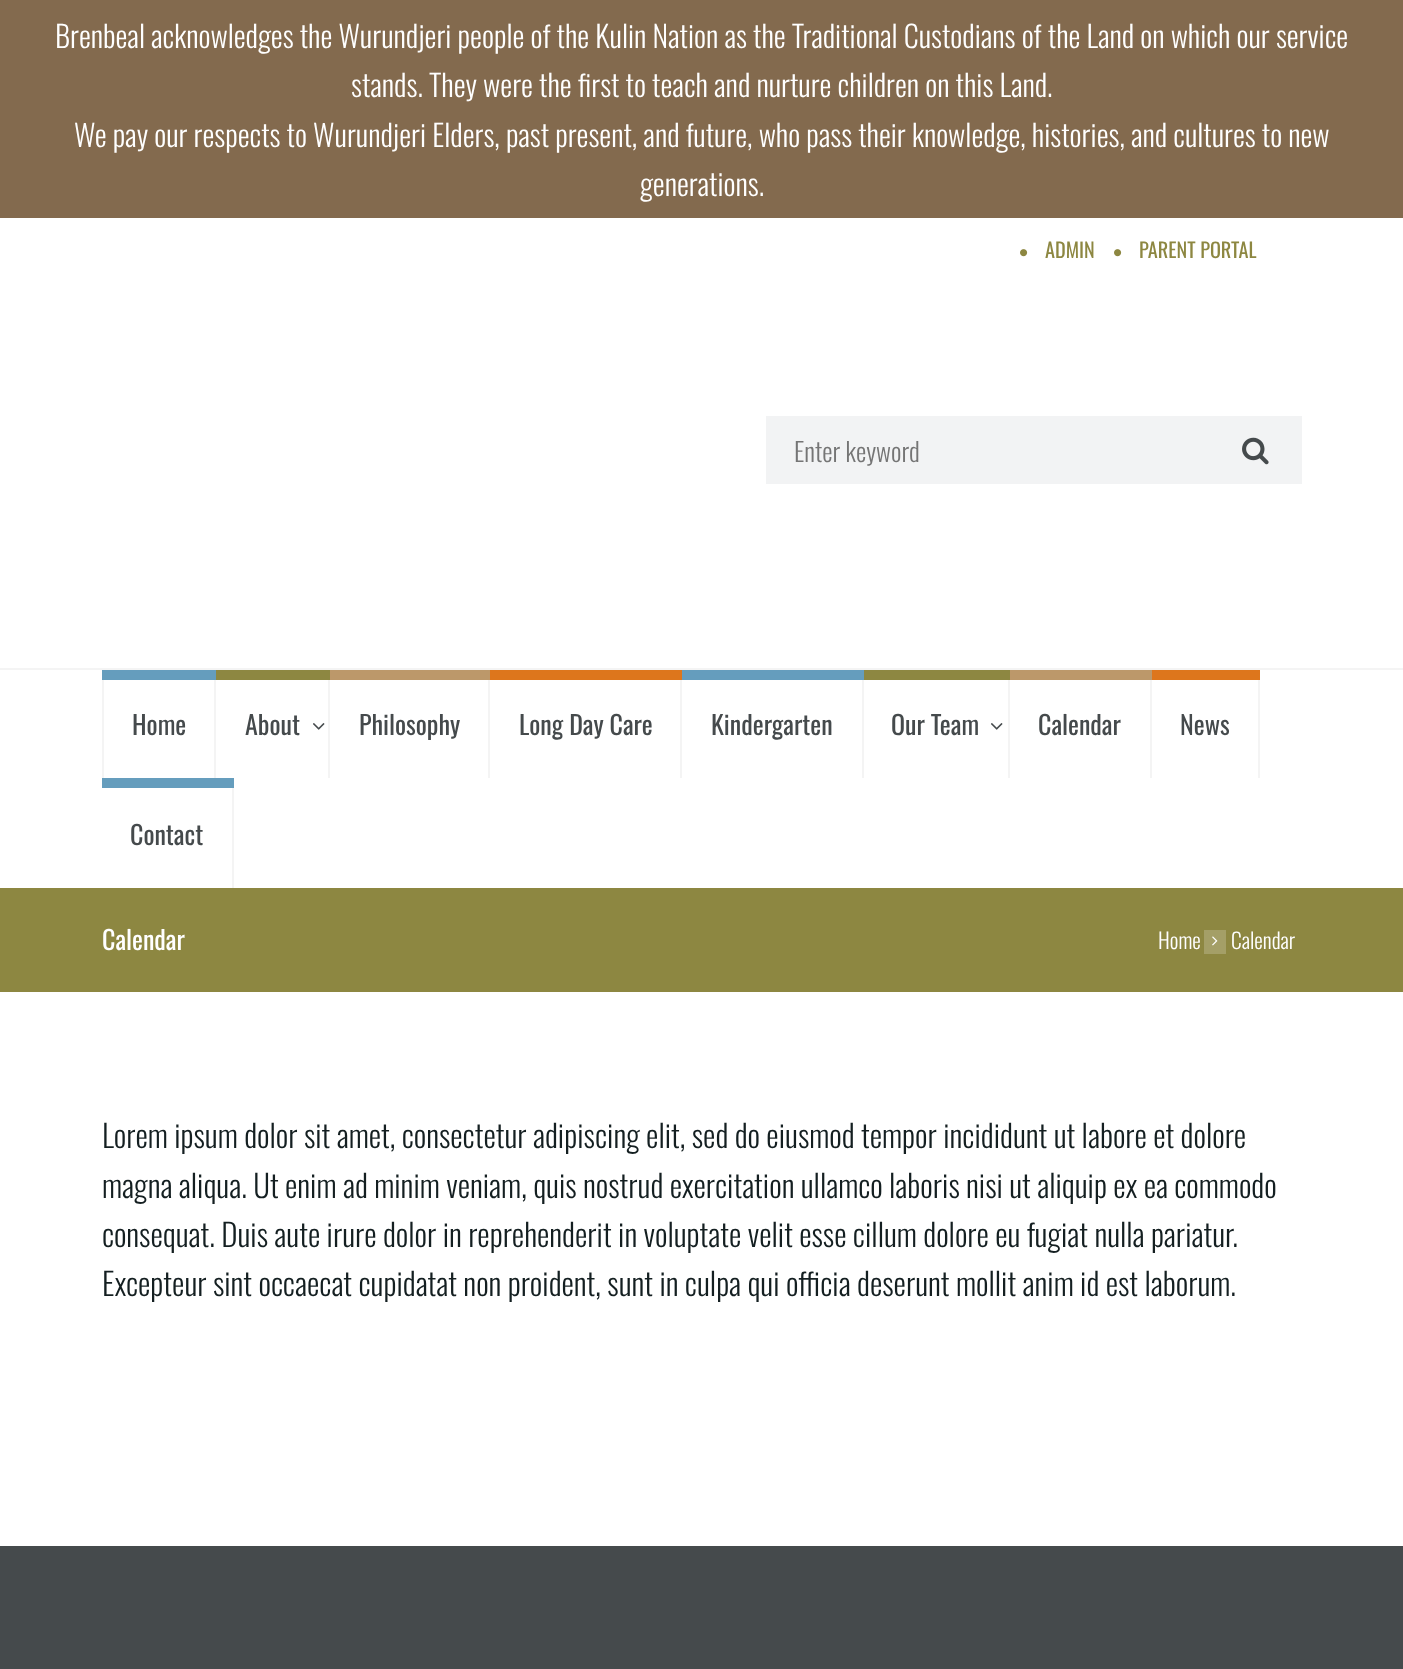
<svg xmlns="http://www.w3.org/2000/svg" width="1403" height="1669">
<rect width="100%" height="100%" fill="#fff"/>
<rect width="1403" height="218" fill="#836a4e"/>
<text x="55" y="48" style="font-family:Oswald;font-size:30px;font-weight:300;fill:#fff">Brenbeal acknowledges the Wurundjeri people of the Kulin Nation as the Traditional Custodians of the Land on which our service</text>
<text x="351" y="97" style="font-family:Oswald;font-size:30px;font-weight:300;fill:#fff">stands. They were the first to teach and nurture children on this Land.</text>
<text x="74" y="147" style="font-family:Oswald;font-size:30px;font-weight:300;fill:#fff">We pay our respects to Wurundjeri Elders, past present, and future, who pass their knowledge, histories, and cultures to new</text>
<text x="640" y="196" style="font-family:Oswald;font-size:30px;font-weight:300;fill:#fff">generations.</text>
<image x="1020" y="249" width="8" height="8" href="media/1.png"/>
<text x="1045" y="258" style="font-family:Oswald;font-size:20.25px;fill:#8d8741">ADMIN</text>
<image x="1114" y="249" width="8" height="8" href="media/1.png"/>
<text x="1139" y="258" style="font-family:Oswald;font-size:20.25px;fill:#8d8741">PARENT PORTAL</text>
<rect y="668" width="1403" height="2" fill="#f4f4f4"/>
<rect x="766" y="416" width="536" height="68" fill="#f2f3f4"/>
<text x="794" y="462" style="font-family:Oswald;font-size:26px;font-weight:300;fill:#757575">Enter keyword</text>
<image x="1242" y="437" width="27" height="28" href="media/2.png"/>
<rect x="102" y="670" width="114" height="10" fill="#659dbd"/>
<rect x="214" y="680" width="2" height="98" fill="#f4f4f4"/>
<rect x="102" y="680" width="2" height="98" fill="#f4f4f4"/>
<text x="132" y="735" style="font-family:Oswald;font-size:26px;fill:#454a4c">Home</text>
<rect x="216" y="670" width="114" height="10" fill="#8d8741"/>
<rect x="328" y="680" width="2" height="98" fill="#f4f4f4"/>
<text x="245" y="735" style="font-family:Oswald;font-size:26px;fill:#454a4c">About</text>
<image x="313" y="723" width="12" height="7" href="media/3.png"/>
<rect x="330" y="670" width="160" height="10" fill="#bc986a"/>
<rect x="488" y="680" width="2" height="98" fill="#f4f4f4"/>
<text x="359" y="735" style="font-family:Oswald;font-size:26px;fill:#454a4c">Philosophy</text>
<rect x="490" y="670" width="192" height="10" fill="#dd761c"/>
<rect x="680" y="680" width="2" height="98" fill="#f4f4f4"/>
<text x="519" y="735" style="font-family:Oswald;font-size:26px;fill:#454a4c">Long Day Care</text>
<rect x="682" y="670" width="182" height="10" fill="#659dbd"/>
<rect x="862" y="680" width="2" height="98" fill="#f4f4f4"/>
<text x="711" y="735" style="font-family:Oswald;font-size:26px;fill:#454a4c">Kindergarten</text>
<rect x="864" y="670" width="146" height="10" fill="#8d8741"/>
<rect x="1008" y="680" width="2" height="98" fill="#f4f4f4"/>
<text x="891" y="735" style="font-family:Oswald;font-size:26px;fill:#454a4c">Our Team</text>
<image x="991" y="723" width="12" height="7" href="media/3.png"/>
<rect x="1010" y="670" width="142" height="10" fill="#bc986a"/>
<rect x="1150" y="680" width="2" height="98" fill="#f4f4f4"/>
<text x="1038" y="735" style="font-family:Oswald;font-size:26px;fill:#454a4c">Calendar</text>
<rect x="1152" y="670" width="108" height="10" fill="#dd761c"/>
<rect x="1258" y="680" width="2" height="98" fill="#f4f4f4"/>
<text x="1180" y="735" style="font-family:Oswald;font-size:26px;fill:#454a4c">News</text>
<rect x="102" y="778" width="132" height="10" fill="#659dbd"/>
<rect x="232" y="788" width="2" height="100" fill="#f4f4f4"/>
<text x="130" y="845" style="font-family:Oswald;font-size:26px;fill:#454a4c">Contact</text>
<rect y="888" width="1403" height="104" fill="#8d8741"/>
<text x="102" y="950" style="font-family:Oswald;font-size:26px;fill:#fff">Calendar</text>
<text x="1158" y="949" style="font-family:Oswald;font-size:21.5px;font-weight:300;fill:#fff">Home</text>
<rect x="1204" y="930" width="22" height="24" fill="#a49f67"/>
<image x="1212" y="936" width="6" height="10" href="media/4.png"/>
<text x="1231" y="949" style="font-family:Oswald;font-size:21.5px;font-weight:300;fill:#fff">Calendar</text>
<text x="102" y="1148" style="font-family:Oswald;font-size:31.2px;font-weight:300;fill:#141f21">Lorem ipsum dolor sit amet, consectetur adipiscing elit, sed do eiusmod tempor incididunt ut labore et dolore</text>
<text x="102" y="1198" style="font-family:Oswald;font-size:31.2px;font-weight:300;fill:#141f21">magna aliqua. Ut enim ad minim veniam, quis nostrud exercitation ullamco laboris nisi ut aliquip ex ea commodo</text>
<text x="102" y="1247" style="font-family:Oswald;font-size:31.2px;font-weight:300;fill:#141f21">consequat. Duis aute irure dolor in reprehenderit in voluptate velit esse cillum dolore eu fugiat nulla pariatur.</text>
<text x="102" y="1296" style="font-family:Oswald;font-size:31.2px;font-weight:300;fill:#141f21">Excepteur sint occaecat cupidatat non proident, sunt in culpa qui officia deserunt mollit anim id est laborum.</text>
<rect y="1546" width="1403" height="123" fill="#454a4c"/>
</svg>
